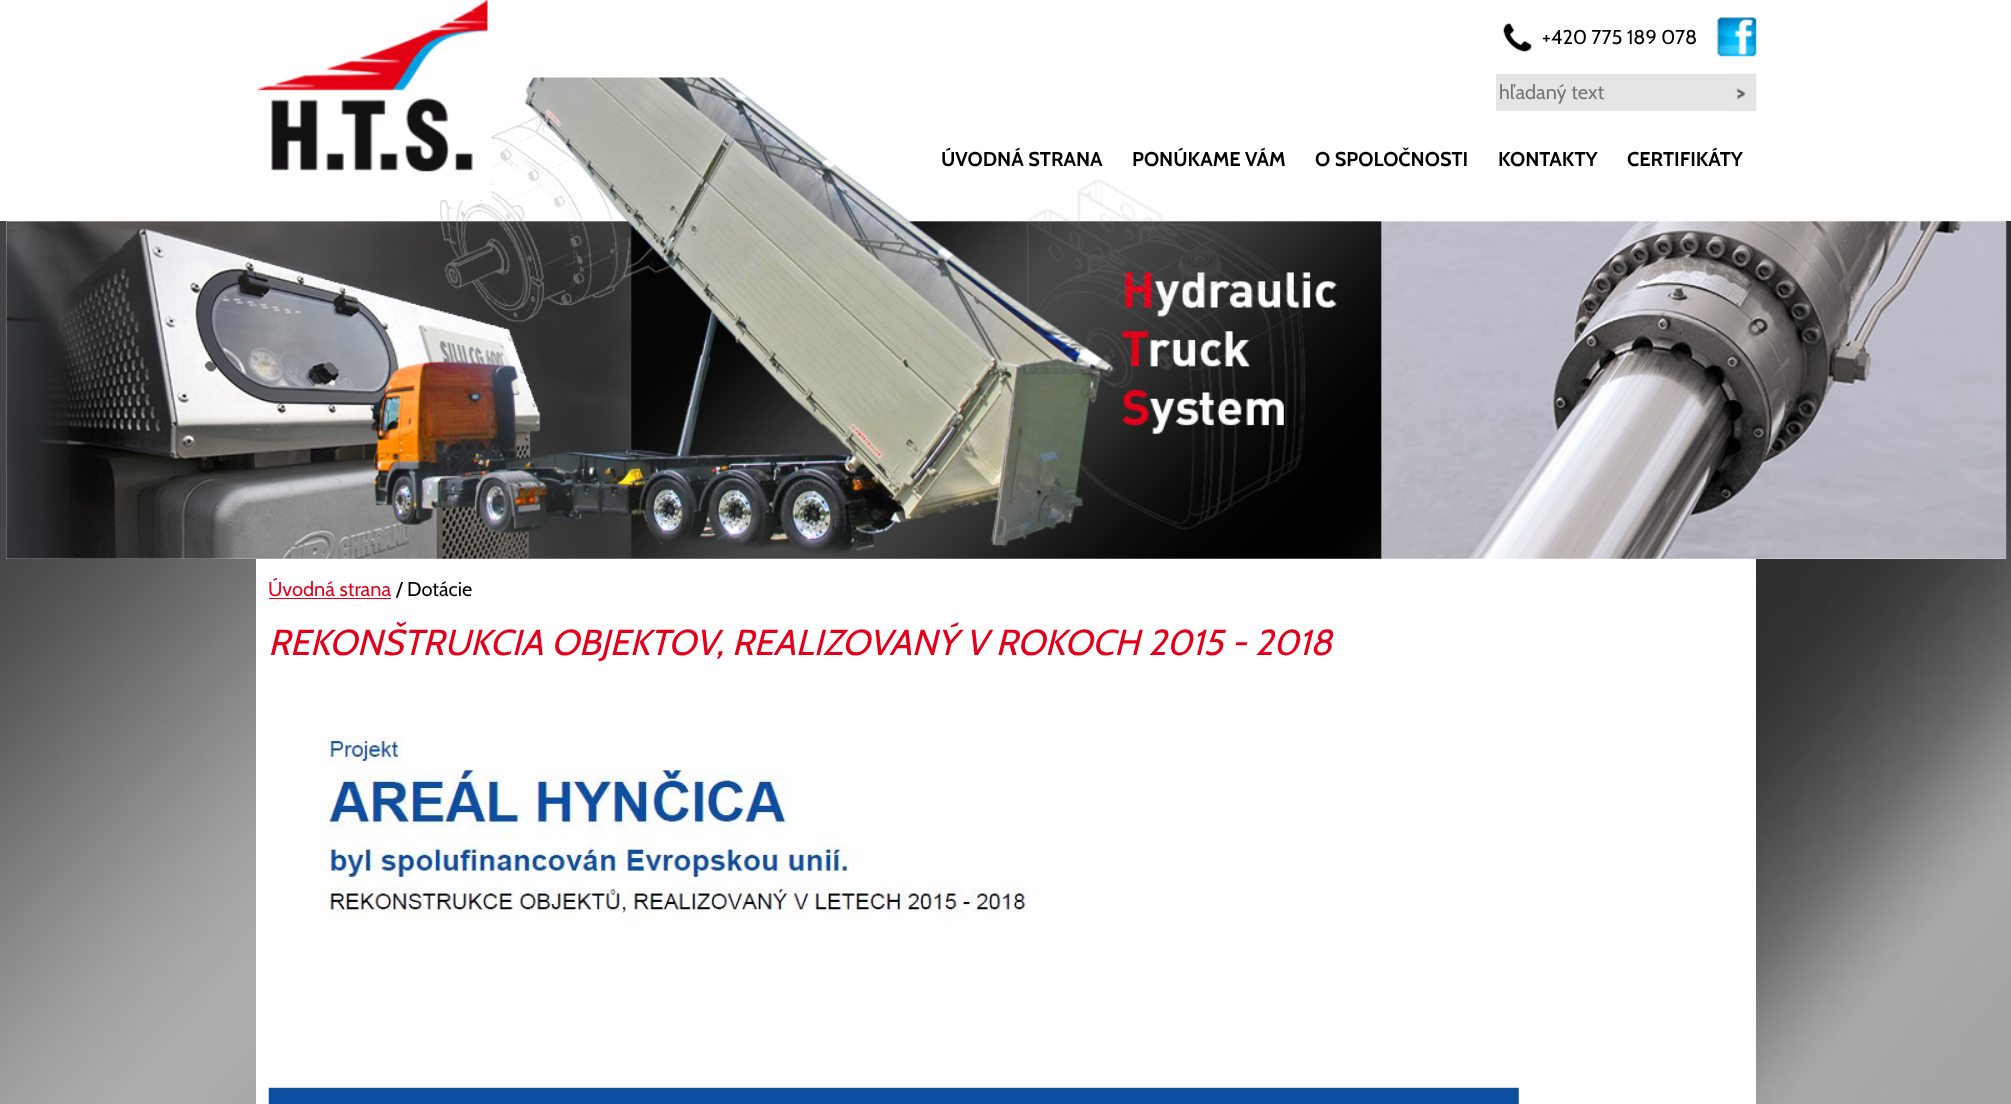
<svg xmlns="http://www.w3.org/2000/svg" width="2011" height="1104">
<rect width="100%" height="100%" fill="#fff"/>
<image x="0" y="221" width="2011" height="883" href="media/1.png"/>
<rect x="6" y="221" width="2000" height="338" fill="#fff"/>
<image x="6" y="77" width="2001" height="482" href="media/6.png"/>
<image x="256" y="0" width="232" height="172" href="media/2.png"/>
<image x="1503" y="23" width="29" height="29" href="media/3.png"/>
<text x="1542" y="44" style="font-family:Cabin;font-size:20px;fill:#000">+420 775 189 078</text>
<image x="1717" y="17" width="40" height="40" href="media/4.png"/>
<rect x="1496" y="74" width="232" height="37" fill="#e5e5e5"/>
<text x="1499" y="99" style="font-family:Cabin;font-size:20px;fill:#757575">hľadaný text</text>
<image x="1728" y="73" width="29" height="39" href="media/5.png"/>
<text x="941" y="166" style="font-family:Cabin;font-size:20px;font-weight:bold;fill:#000">ÚVODNÁ STRANA</text>
<text x="1132" y="166" style="font-family:Cabin;font-size:20px;font-weight:bold;fill:#000">PONÚKAME VÁM</text>
<text x="1315" y="166" style="font-family:Cabin;font-size:20px;font-weight:bold;fill:#000">O SPOLOČNOSTI</text>
<text x="1498" y="166" style="font-family:Cabin;font-size:20px;font-weight:bold;fill:#000">KONTAKTY</text>
<text x="1627" y="166" style="font-family:Cabin;font-size:20px;font-weight:bold;fill:#000">CERTIFIKÁTY</text>
<rect x="256" y="559" width="1500" height="545" fill="#fff"/>
<text x="268" y="596" style="font-family:Cabin;font-size:20px;fill:#e2001a">Úvodná strana</text>
<rect x="269" y="598" width="122" height="1" fill="#e2001a"/>
<text x="396" y="596" style="font-family:Cabin;font-size:20px;fill:#000">/ Dotácie</text>
<text x="268" y="655" style="font-family:Cabin;font-size:36px;font-style:italic;fill:#e2001a">REKONŠTRUKCIA OBJEKTOV, REALIZOVANÝ V ROKOCH 2015 - 2018</text>
<image x="268" y="736" width="1251" height="368" href="media/7.png"/>
</svg>
